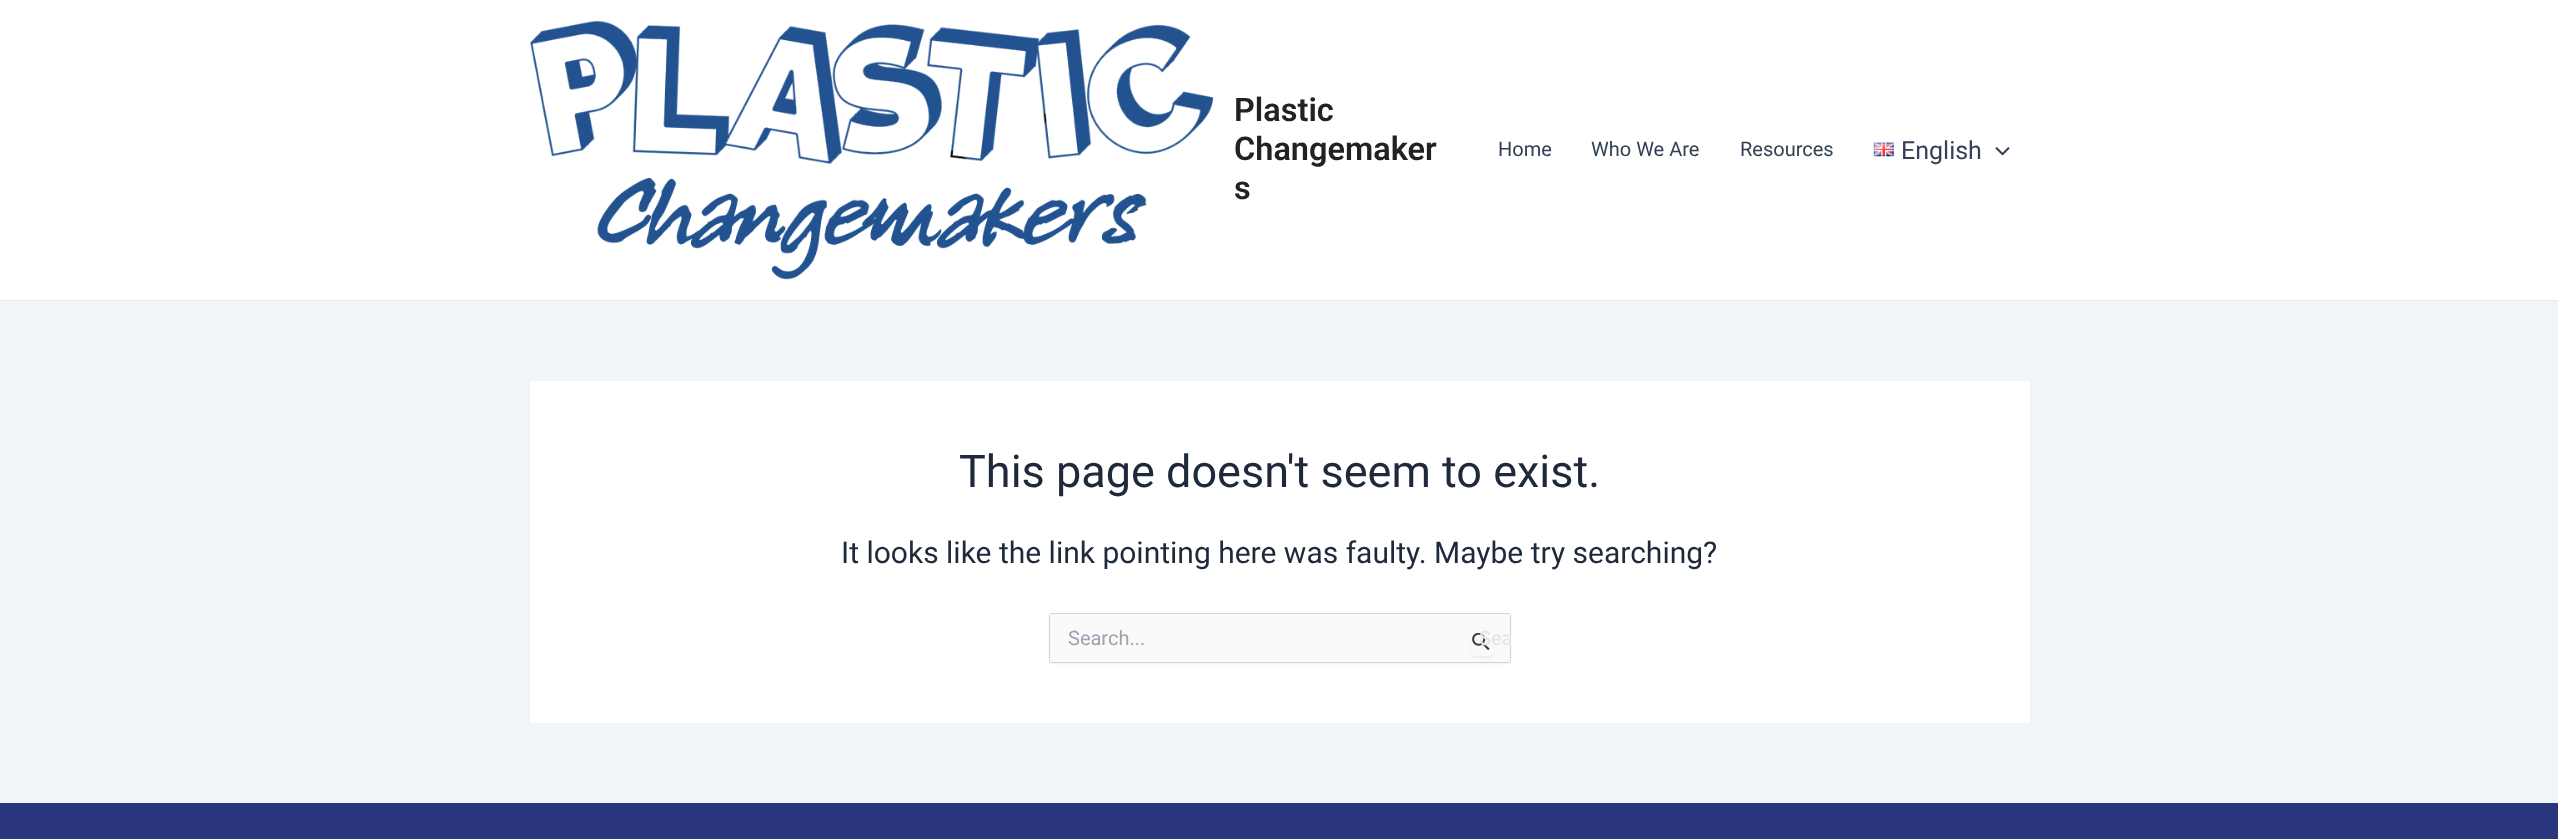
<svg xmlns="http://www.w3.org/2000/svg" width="2558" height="839">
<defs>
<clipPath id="clip1"><path d="M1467 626h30v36h-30zm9 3h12c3 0 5 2 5 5v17c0 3-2 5-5 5h-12c-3 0-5-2-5-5v-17c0-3 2-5 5-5z" clip-rule="evenodd"/></clipPath>
<clipPath id="clip2"><rect x="1455" y="613" width="56" height="52" rx="2.5"/></clipPath>
</defs>
<rect width="100%" height="100%" fill="#f0f5fa"/>
<rect width="2558" height="300" fill="#fff"/>
<rect y="300" width="2558" height="1" fill="#eaeaea"/>
<image x="530" y="20" width="684" height="260" href="media/1.png"/>
<text x="1234" y="121" style="font-family:Roboto;font-size:32.5px;font-weight:600;fill:#222">Plastic</text>
<text x="1234" y="160" style="font-family:Roboto;font-size:32.5px;font-weight:600;fill:#222">Changemaker</text>
<text x="1234" y="199" style="font-family:Roboto;font-size:32.5px;font-weight:600;fill:#222">s</text>
<text x="1498" y="156" style="font-family:Roboto;font-size:20px;fill:#334155">Home</text>
<text x="1591" y="156" style="font-family:Roboto;font-size:20px;fill:#334155">Who We Are</text>
<text x="1740" y="156" style="font-family:Roboto;font-size:20px;fill:#334155">Resources</text>
<image x="1873" y="142" width="21" height="15" href="media/2.png"/>
<text x="1901" y="159" style="font-family:Roboto;font-size:25px;fill:#334155">English</text>
<image x="1995" y="147" width="15" height="9" href="media/3.png"/>
<rect x="530" y="381" width="1500" height="342" fill="#fff"/>
<text x="959" y="487" style="font-family:Roboto;font-size:45px;fill:#1e293b">This page doesn't seem to exist.</text>
<text x="841" y="563" style="font-family:Roboto;font-size:30px;fill:#1e293b">It looks like the link pointing here was faulty. Maybe try searching?</text>
<rect x="1049" y="614" width="462" height="50" rx="2.5" fill="#0000000d" filter="blur(1px)"/>
<rect x="1049.5" y="613.5" width="461" height="49" rx="2" fill="#fafafa" stroke="#d1d5db"/>
<text x="1068" y="645" style="font-family:Roboto;font-size:20px;fill:#9ca3af">Search...</text>
<g clip-path="url(#clip1)">
<rect x="1471" y="630" width="22" height="28" rx="5" fill="#0000000d" filter="blur(1px)"/>
</g>
<image x="1472" y="633" width="18" height="18" href="media/4.png"/>
<g clip-path="url(#clip2)">
<text x="1479" y="645" style="font-family:Roboto;font-size:20px;font-weight:500;fill:#e7e7e7">Sea</text>
</g>
<rect y="803" width="2558" height="36" fill="#29367e"/>
</svg>
